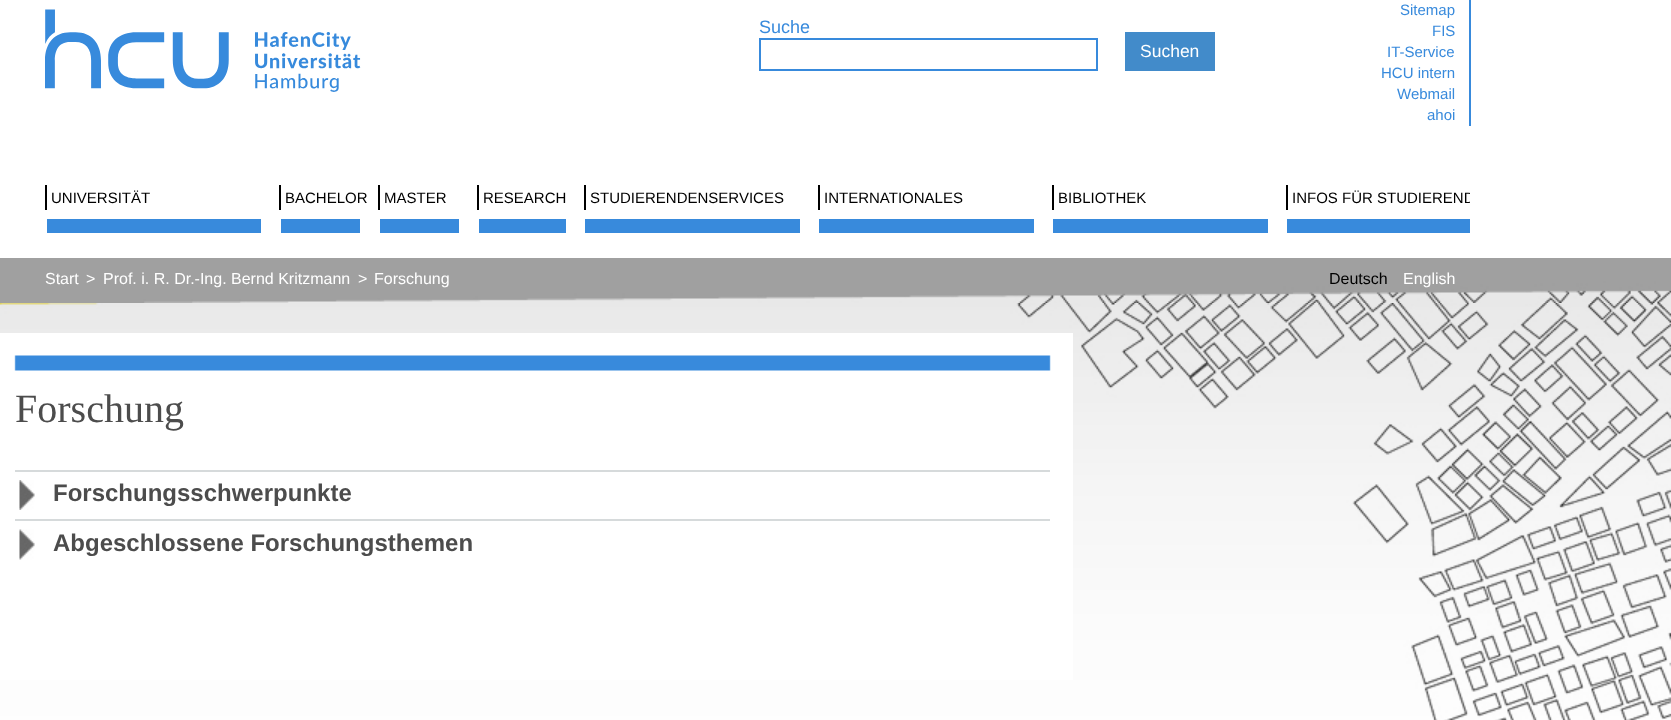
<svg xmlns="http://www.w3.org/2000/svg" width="1671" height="720">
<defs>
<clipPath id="clip1"><rect x="1287" y="185" width="183" height="25"/></clipPath>
</defs>
<rect width="100%" height="100%" fill="#fff"/>
<image x="45" y="9" width="316" height="83" href="media/1.png"/>
<text x="759" y="33" style="font-family:Liberation Sans;font-size:18px;fill:#388adc">Suche</text>
<rect x="760" y="39" width="337" height="31" fill="none" stroke="#388adc" stroke-width="2"/>
<rect x="1125" y="32" width="90" height="39" fill="#428bca"/>
<text x="1140" y="57" style="font-family:Liberation Sans;font-size:17.5px;fill:#fff">Suchen</text>
<rect x="1469" width="2" height="126" fill="#388adc"/>
<text x="1400" y="15" style="font-family:Liberation Sans;font-size:15px;fill:#388adc">Sitemap</text>
<text x="1432" y="36" style="font-family:Liberation Sans;font-size:15px;fill:#388adc">FIS</text>
<text x="1387" y="57" style="font-family:Liberation Sans;font-size:15px;fill:#388adc">IT-Service</text>
<text x="1381" y="78" style="font-family:Liberation Sans;font-size:15px;fill:#388adc">HCU intern</text>
<text x="1397" y="99" style="font-family:Liberation Sans;font-size:15px;fill:#388adc">Webmail</text>
<text x="1427" y="120" style="font-family:Liberation Sans;font-size:15px;fill:#388adc">ahoi</text>
<rect x="47" y="219" width="214" height="14" fill="#388adc"/>
<rect x="45" y="185" width="2" height="25" fill="#000"/>
<text x="51" y="203" style="font-family:Liberation Sans;font-size:15px;fill:#000">UNIVERSITÄT</text>
<rect x="281" y="219" width="79" height="14" fill="#388adc"/>
<rect x="279" y="185" width="2" height="25" fill="#000"/>
<text x="285" y="203" style="font-family:Liberation Sans;font-size:15px;fill:#000">BACHELOR</text>
<rect x="380" y="219" width="79" height="14" fill="#388adc"/>
<rect x="378" y="185" width="2" height="25" fill="#000"/>
<text x="384" y="203" style="font-family:Liberation Sans;font-size:15px;fill:#000">MASTER</text>
<rect x="479" y="219" width="87" height="14" fill="#388adc"/>
<rect x="477" y="185" width="2" height="25" fill="#000"/>
<text x="483" y="203" style="font-family:Liberation Sans;font-size:15px;fill:#000">RESEARCH</text>
<rect x="585" y="219" width="215" height="14" fill="#388adc"/>
<rect x="584" y="185" width="2" height="25" fill="#000"/>
<text x="590" y="203" style="font-family:Liberation Sans;font-size:15px;fill:#000">STUDIERENDENSERVICES</text>
<rect x="819" y="219" width="215" height="14" fill="#388adc"/>
<rect x="818" y="185" width="2" height="25" fill="#000"/>
<text x="824" y="203" style="font-family:Liberation Sans;font-size:15px;fill:#000">INTERNATIONALES</text>
<rect x="1053" y="219" width="215" height="14" fill="#388adc"/>
<rect x="1052" y="185" width="2" height="25" fill="#000"/>
<text x="1058" y="203" style="font-family:Liberation Sans;font-size:15px;fill:#000">BIBLIOTHEK</text>
<rect x="1287" y="219" width="183" height="14" fill="#388adc"/>
<rect x="1286" y="185" width="2" height="25" fill="#000"/>
<g clip-path="url(#clip1)">
<text x="1292" y="203" style="font-family:Liberation Sans;font-size:15px;fill:#000">INFOS FÜR STUDIEREND</text>
</g>
<image x="0" y="258" width="1671" height="45" href="media/2.png"/>
<text x="45" y="284" style="font-family:Liberation Sans;font-size:16px;fill:#fff">Start</text>
<text x="86" y="284" style="font-family:Liberation Sans;font-size:16px;fill:#fff">&gt;</text>
<text x="103" y="284" style="font-family:Liberation Sans;font-size:16px;fill:#fff">Prof. i. R. Dr.-Ing. Bernd Kritzmann</text>
<text x="358" y="284" style="font-family:Liberation Sans;font-size:16px;fill:#fff">&gt;</text>
<text x="374" y="284" style="font-family:Liberation Sans;font-size:16px;fill:#fff">Forschung</text>
<text x="1329" y="284" style="font-family:Liberation Sans;font-size:16px;fill:#000">Deutsch</text>
<text x="1403" y="284" style="font-family:Liberation Sans;font-size:16px;fill:#fff">English</text>
<image x="0" y="303" width="1671" height="417" href="media/3.png"/>
<rect y="333" width="1073" height="347" fill="#fff"/>
<image x="14" y="355" width="1037" height="16" href="media/4.png"/>
<text x="15" y="422" style="font-family:Liberation Serif;font-size:40px;fill:#4c4c4c">Forschung</text>
<rect x="15" y="470" width="1035" height="2" fill="#d6dadb"/>
<image x="19" y="480" width="16" height="30" href="media/5.png"/>
<text x="53" y="501" style="font-family:Liberation Sans;font-size:24px;font-weight:bold;fill:#4c4c4c">Forschungsschwerpunkte</text>
<rect x="15" y="519" width="1035" height="2" fill="#d6dadb"/>
<image x="19" y="529" width="16" height="31" href="media/6.png"/>
<text x="53" y="551" style="font-family:Liberation Sans;font-size:24px;font-weight:bold;fill:#4c4c4c">Abgeschlossene Forschungsthemen</text>
</svg>
